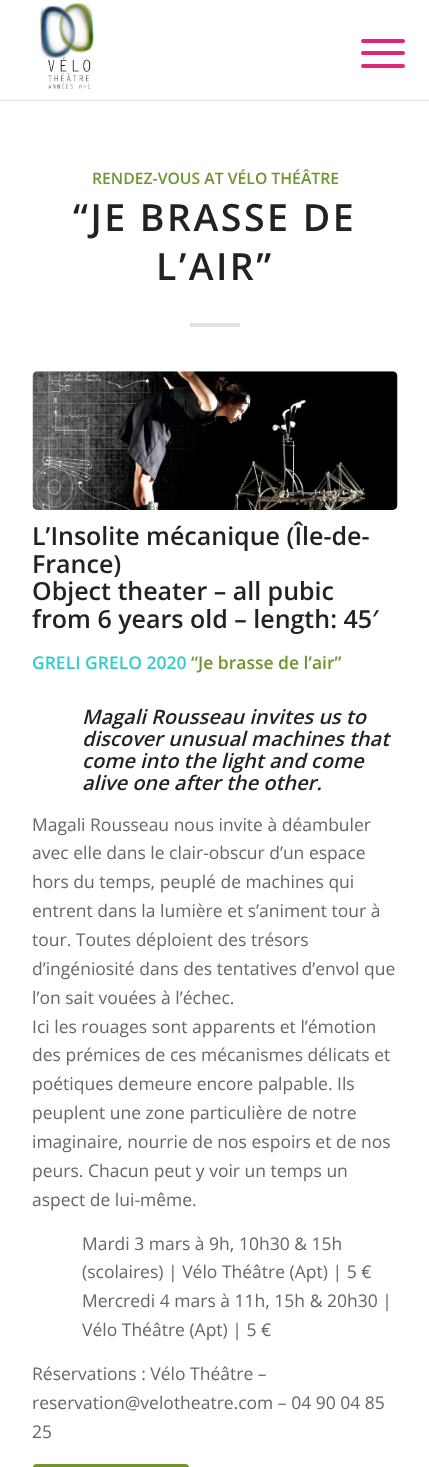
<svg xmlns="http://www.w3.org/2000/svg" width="429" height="1467">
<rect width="100%" height="100%" fill="#fff"/>
<rect y="100" width="429" height="1" fill="#e1e1e1"/>
<image x="39" y="2" width="55" height="87" href="media/1.png"/>
<rect x="361" y="51" width="44" height="4" rx="2" fill="#e0267a"/>
<rect x="361" y="39" width="44" height="4" rx="2" fill="#e0267a"/>
<rect x="361" y="64" width="44" height="4" rx="2" fill="#e0267a"/>
<text x="92" y="184" style="font-family:Open Sans;font-size:15.75px;font-weight:600;fill:#719430">RENDEZ-VOUS AT VÉLO THÉÂTRE</text>
<text x="73" y="231" style="font-family:Open Sans;font-size:37.5px;font-weight:600;letter-spacing:2.5px;fill:#222">“JE BRASSE DE</text>
<text x="156" y="280" style="font-family:Open Sans;font-size:37.5px;font-weight:600;letter-spacing:2.5px;fill:#222">L’AIR”</text>
<rect x="190" y="323" width="50" height="4" fill="#e1e1e1"/>
<image x="32" y="371" width="366" height="139" href="media/2.png"/>
<text x="32" y="545" style="font-family:Open Sans;font-size:25px;font-weight:600;fill:#222">L’Insolite mécanique (Île-de-</text>
<text x="32" y="573" style="font-family:Open Sans;font-size:25px;font-weight:600;fill:#222">France)</text>
<text x="32" y="600" style="font-family:Open Sans;font-size:25px;font-weight:600;fill:#222">Object theater – all pubic</text>
<text x="32" y="628" style="font-family:Open Sans;font-size:25px;font-weight:600;fill:#222">from 6 years old – length: 45′</text>
<text x="32" y="669" style="font-family:Open Sans;font-size:17.5px;font-weight:600;fill:#3cc">GRELI GRELO 2020</text>
<text x="191" y="669" style="font-family:Open Sans;font-size:17.5px;font-weight:600;fill:#719430">“Je brasse de l’air”</text>
<text x="82" y="724" style="font-family:Open Sans;font-size:20px;font-weight:600;font-style:italic;fill:#222">Magali Rousseau invites us to</text>
<text x="82" y="746" style="font-family:Open Sans;font-size:20px;font-weight:600;font-style:italic;fill:#222">discover unusual machines that</text>
<text x="82" y="768" style="font-family:Open Sans;font-size:20px;font-weight:600;font-style:italic;fill:#222">come into the light and come</text>
<text x="82" y="790" style="font-family:Open Sans;font-size:20px;font-weight:600;font-style:italic;fill:#222">alive one after the other.</text>
<text x="32" y="831" style="font-family:Open Sans;font-size:17.5px;fill:#666">Magali Rousseau nous invite à déambuler</text>
<text x="32" y="859" style="font-family:Open Sans;font-size:17.5px;fill:#666">avec elle dans le clair-obscur d’un espace</text>
<text x="32" y="888" style="font-family:Open Sans;font-size:17.5px;fill:#666">hors du temps, peuplé de machines qui</text>
<text x="32" y="917" style="font-family:Open Sans;font-size:17.5px;fill:#666">entrent dans la lumière et sʼaniment tour à</text>
<text x="32" y="946" style="font-family:Open Sans;font-size:17.5px;fill:#666">tour. Toutes déploient des trésors</text>
<text x="32" y="975" style="font-family:Open Sans;font-size:17.5px;fill:#666">dʼingéniosité dans des tentatives dʼenvol que</text>
<text x="32" y="1004" style="font-family:Open Sans;font-size:17.5px;fill:#666">lʼon sait vouées à lʼéchec.</text>
<text x="32" y="1033" style="font-family:Open Sans;font-size:17.5px;fill:#666">Ici les rouages sont apparents et lʼémotion</text>
<text x="32" y="1061" style="font-family:Open Sans;font-size:17.5px;fill:#666">des prémices de ces mécanismes délicats et</text>
<text x="32" y="1090" style="font-family:Open Sans;font-size:17.5px;fill:#666">poétiques demeure encore palpable. Ils</text>
<text x="32" y="1119" style="font-family:Open Sans;font-size:17.5px;fill:#666">peuplent une zone particulière de notre</text>
<text x="32" y="1148" style="font-family:Open Sans;font-size:17.5px;fill:#666">imaginaire, nourrie de nos espoirs et de nos</text>
<text x="32" y="1177" style="font-family:Open Sans;font-size:17.5px;fill:#666">peurs. Chacun peut y voir un temps un</text>
<text x="32" y="1206" style="font-family:Open Sans;font-size:17.5px;fill:#666">aspect de lui-même.</text>
<text x="82" y="1250" style="font-family:Open Sans;font-size:17.5px;fill:#666">Mardi 3 mars à 9h, 10h30 &amp; 15h</text>
<text x="82" y="1278" style="font-family:Open Sans;font-size:17.5px;fill:#666">(scolaires) | Vélo Théâtre (Apt) | 5 €</text>
<text x="82" y="1307" style="font-family:Open Sans;font-size:17.5px;fill:#666">Mercredi 4 mars à 11h, 15h &amp; 20h30 |</text>
<text x="82" y="1336" style="font-family:Open Sans;font-size:17.5px;fill:#666">Vélo Théâtre (Apt) | 5 €</text>
<text x="32" y="1380" style="font-family:Open Sans;font-size:17.5px;fill:#666">Réservations : Vélo Théâtre –</text>
<text x="32" y="1409" style="font-family:Open Sans;font-size:17.5px;fill:#666">reservation@velotheatre.com – 04 90 04 85</text>
<text x="32" y="1438" style="font-family:Open Sans;font-size:17.5px;fill:#666">25</text>
<rect x="33" y="1464" width="156" height="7" rx="4" fill="#719430"/>
</svg>
